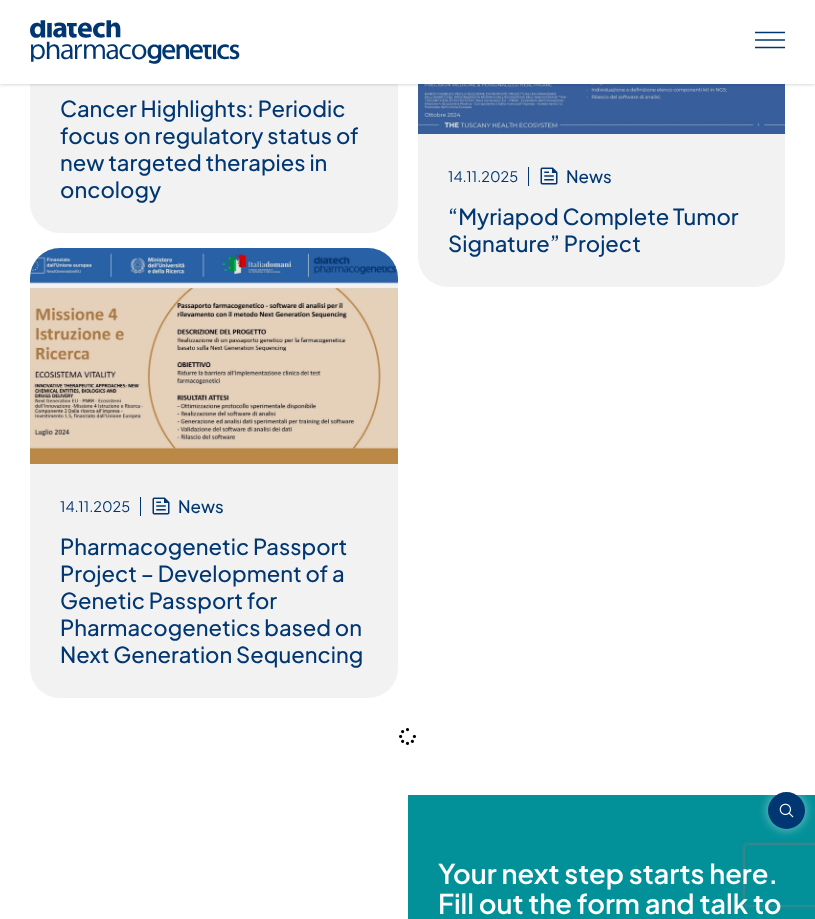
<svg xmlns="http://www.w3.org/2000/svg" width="815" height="919">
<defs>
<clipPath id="clip1"><rect x="755" y="31" width="30" height="18"/></clipPath>
<linearGradient id="g1" gradientUnits="userSpaceOnUse" x1="678" y1="753" x2="545" y2="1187"><stop offset="0.58" stop-color="#029099"/><stop offset="1" stop-color="#0963ce"/></linearGradient>
<clipPath id="clip2"><path d="M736 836h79v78h-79zm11 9h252c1 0 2 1 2 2v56c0 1-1 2-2 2h-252c-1 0-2-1-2-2v-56c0-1 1-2 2-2z" clip-rule="evenodd"/></clipPath>
</defs>
<rect width="100%" height="100%" fill="#fff"/>
<rect x="30" y="-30" width="368" height="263" rx="30" fill="#f2f2f2"/>
<rect x="418" y="-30" width="367" height="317" rx="30" fill="#f2f2f2"/>
<image x="418" y="84" width="367" height="50" href="media/2.png"/>
<rect y="1" width="815" height="84" fill="#1018281a" filter="blur(1.5px)"/>
<rect y="1" width="815" height="84" fill="#1018280f" filter="blur(1px)"/>
<rect width="815" height="84" fill="#fff"/>
<image x="30" y="20" width="210" height="44" href="media/1.png"/>
<g clip-path="url(#clip1)">
<path d="M755 32.5h30m-30 7.5h30m-30 7.5h30" fill="none" stroke="#003772" stroke-width="1.5" stroke-linecap="round"/>
</g>
<text x="60" y="117" style="font-family:Plus Jakarta Sans;font-size:22px;font-weight:500;fill:#003772">Cancer Highlights: Periodic</text>
<text x="60" y="144" style="font-family:Plus Jakarta Sans;font-size:22px;font-weight:500;fill:#003772">focus on regulatory status of</text>
<text x="60" y="171" style="font-family:Plus Jakarta Sans;font-size:22px;font-weight:500;fill:#003772">new targeted therapies in</text>
<text x="60" y="198" style="font-family:Plus Jakarta Sans;font-size:22px;font-weight:500;fill:#003772">oncology</text>
<rect x="528" y="167" width="1" height="19" fill="#003772"/>
<text x="448" y="182" style="font-family:Plus Jakarta Sans;font-size:14.5px;fill:#003772">14.11.2025</text>
<image x="540" y="167" width="18" height="18" href="media/3.png"/>
<text x="566" y="183" style="font-family:Plus Jakarta Sans;font-size:17px;font-weight:500;fill:#003772">News</text>
<text x="448" y="225" style="font-family:Plus Jakarta Sans;font-size:22px;font-weight:500;fill:#003772">“Myriapod Complete Tumor</text>
<text x="448" y="252" style="font-family:Plus Jakarta Sans;font-size:22px;font-weight:500;fill:#003772">Signature” Project</text>
<rect x="30" y="248" width="368" height="450" rx="30" fill="#f2f2f2"/>
<image x="30" y="248" width="368" height="216" href="media/4.png"/>
<rect x="140" y="497" width="1" height="19" fill="#003772"/>
<text x="60" y="512" style="font-family:Plus Jakarta Sans;font-size:14.5px;fill:#003772">14.11.2025</text>
<image x="152" y="497" width="18" height="18" href="media/3.png"/>
<text x="178" y="513" style="font-family:Plus Jakarta Sans;font-size:17px;font-weight:500;fill:#003772">News</text>
<text x="60" y="555" style="font-family:Plus Jakarta Sans;font-size:22px;font-weight:500;fill:#003772">Pharmacogenetic Passport</text>
<text x="60" y="582" style="font-family:Plus Jakarta Sans;font-size:22px;font-weight:500;fill:#003772">Project – Development of a</text>
<text x="60" y="609" style="font-family:Plus Jakarta Sans;font-size:22px;font-weight:500;fill:#003772">Genetic Passport for</text>
<text x="60" y="636" style="font-family:Plus Jakarta Sans;font-size:22px;font-weight:500;fill:#003772">Pharmacogenetics based on</text>
<text x="60" y="663" style="font-family:Plus Jakarta Sans;font-size:22px;font-weight:500;fill:#003772">Next Generation Sequencing</text>
<image x="399" y="728" width="17" height="17" href="media/5.png"/>
<rect x="408" y="795" width="407" height="124" fill="url(#g1)"/>
<g clip-path="url(#clip2)">
<rect x="745" y="845" width="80" height="60" rx="2" fill="#808080" filter="blur(2.5px)"/>
</g>
<rect x="768" y="792" width="37" height="37" rx="18.5" fill="#ffffff80" filter="blur(5.5px)"/>
<circle cx="786.5" cy="810.5" r="18.5" fill="#003772"/>
<image x="779" y="803" width="15" height="15" href="media/6.png"/>
<text x="438" y="884" style="font-family:Plus Jakarta Sans;font-size:27.25px;font-weight:600;fill:#fff">Your next step starts here.</text>
<text x="438" y="914" style="font-family:Plus Jakarta Sans;font-size:27.25px;font-weight:600;fill:#fff">Fill out the form and talk to</text>
</svg>
